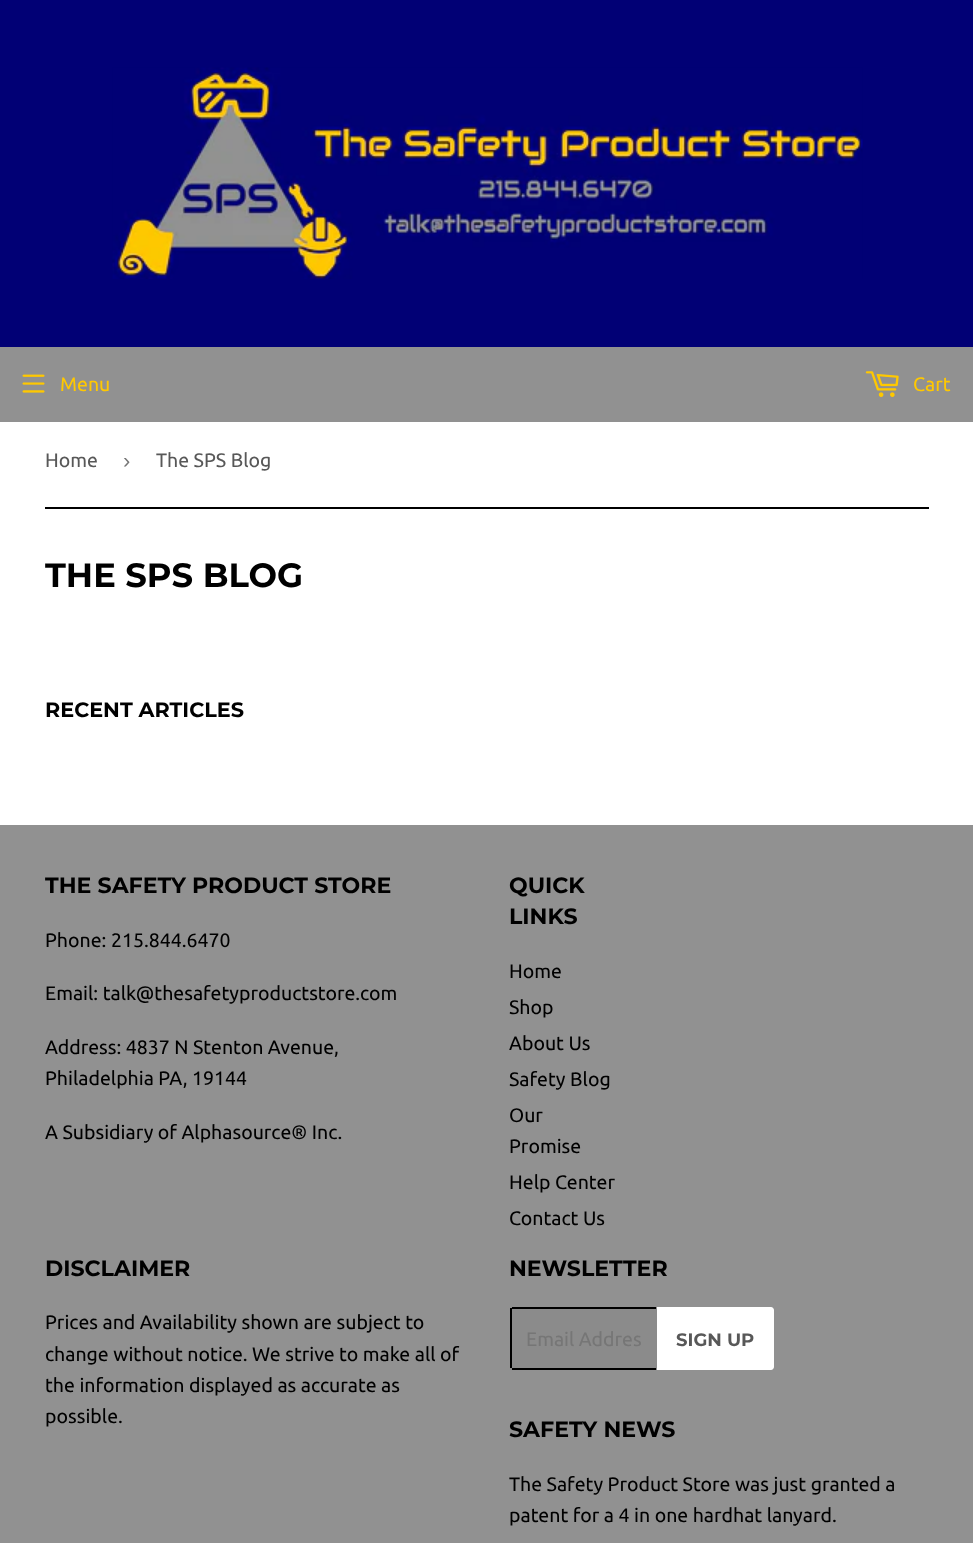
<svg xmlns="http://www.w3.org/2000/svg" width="973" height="1543">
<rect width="100%" height="100%" fill="#fff"/>
<rect width="973" height="347" fill="#010075"/>
<image x="112" y="67" width="751" height="212" href="media/1.png"/>
<rect y="347" width="973" height="75" fill="#919191"/>
<image x="22" y="374" width="23" height="19" href="media/2.png"/>
<text x="60" y="391" style="font-family:Ubuntu;font-size:19.5px;fill:#ffc800">Menu</text>
<image x="865" y="371" width="34" height="26" href="media/3.png"/>
<text x="913" y="391" style="font-family:Ubuntu;font-size:19.5px;fill:#ffc800">Cart</text>
<rect x="45" y="507" width="884" height="2" fill="#000"/>
<text x="45" y="467" style="font-family:Ubuntu;font-size:19.5px;fill:#585858">Home</text>
<text x="123" y="468" style="font-family:Liberation Sans;font-size:22px;fill:#767676">›</text>
<text x="156" y="467" style="font-family:Ubuntu;font-size:19.5px;fill:#585858">The SPS Blog</text>
<text x="45" y="587" style="font-family:Montserrat;font-size:33.75px;font-weight:100;fill:#000">THE SPS BLOG</text>
<text x="45" y="717" style="font-family:Montserrat;font-size:20.75px;font-weight:100;fill:#000">RECENT ARTICLES</text>
<rect y="825" width="973" height="718" fill="#919191"/>
<text x="45" y="893" style="font-family:Montserrat;font-size:22.1px;font-weight:100;fill:#000">THE SAFETY PRODUCT STORE</text>
<text x="45" y="947" style="font-family:Ubuntu;font-size:19.5px;fill:#000">Phone: 215.844.6470</text>
<text x="45" y="1000" style="font-family:Ubuntu;font-size:19.5px;fill:#000">Email: talk@thesafetyproductstore.com</text>
<text x="45" y="1054" style="font-family:Ubuntu;font-size:19.5px;fill:#000">Address: 4837 N Stenton Avenue,</text>
<text x="45" y="1085" style="font-family:Ubuntu;font-size:19.5px;fill:#000">Philadelphia PA, 19144</text>
<text x="45" y="1139" style="font-family:Ubuntu;font-size:19.5px;fill:#000">A Subsidiary of Alphasource® Inc.</text>
<text x="509" y="893" style="font-family:Montserrat;font-size:22.1px;font-weight:100;fill:#000">QUICK</text>
<text x="509" y="924" style="font-family:Montserrat;font-size:22.1px;font-weight:100;fill:#000">LINKS</text>
<text x="509" y="978" style="font-family:Ubuntu;font-size:19.5px;fill:#000">Home</text>
<text x="509" y="1014" style="font-family:Ubuntu;font-size:19.5px;fill:#000">Shop</text>
<text x="509" y="1050" style="font-family:Ubuntu;font-size:19.5px;fill:#000">About Us</text>
<text x="509" y="1086" style="font-family:Ubuntu;font-size:19.5px;fill:#000">Safety Blog</text>
<text x="509" y="1122" style="font-family:Ubuntu;font-size:19.5px;fill:#000">Our</text>
<text x="509" y="1153" style="font-family:Ubuntu;font-size:19.5px;fill:#000">Promise</text>
<text x="509" y="1189" style="font-family:Ubuntu;font-size:19.5px;fill:#000">Help Center</text>
<text x="509" y="1225" style="font-family:Ubuntu;font-size:19.5px;fill:#000">Contact Us</text>
<text x="45" y="1276" style="font-family:Montserrat;font-size:22.1px;font-weight:100;fill:#000">DISCLAIMER</text>
<text x="45" y="1329" style="font-family:Ubuntu;font-size:19.5px;fill:#000">Prices and Availability shown are subject to</text>
<text x="45" y="1361" style="font-family:Ubuntu;font-size:19.5px;fill:#000">change without notice. We strive to make all of</text>
<text x="45" y="1392" style="font-family:Ubuntu;font-size:19.5px;fill:#000">the information displayed as accurate as</text>
<text x="45" y="1423" style="font-family:Ubuntu;font-size:19.5px;fill:#000">possible.</text>
<text x="509" y="1276" style="font-family:Montserrat;font-size:22.1px;font-weight:100;fill:#000">NEWSLETTER</text>
<rect x="510" y="1307" width="147" height="63" rx="3" fill="#8b8b8b"/>
<rect x="512" y="1307" width="144" height="2" fill="#000"/>
<rect x="512" y="1368" width="144" height="2" fill="#000"/>
<rect x="510" y="1308" width="2" height="60" fill="#000"/>
<text x="526" y="1346" style="font-family:Ubuntu;font-size:19.5px;fill:#767676">Email Addres</text>
<path d="M657 1307h114c1.5 0 3 1.5 3 3v57c0 1.5-1.5 3-3 3h-114z" fill="#fff"/>
<text x="676" y="1346" style="font-family:Montserrat;font-size:18px;font-weight:100;fill:#585858">SIGN UP</text>
<text x="509" y="1437" style="font-family:Montserrat;font-size:22.1px;font-weight:100;fill:#000">SAFETY NEWS</text>
<text x="509" y="1491" style="font-family:Ubuntu;font-size:19.5px;fill:#000">The Safety Product Store was just granted a</text>
<text x="509" y="1522" style="font-family:Ubuntu;font-size:19.5px;fill:#000">patent for a 4 in one hardhat lanyard.</text>
</svg>
